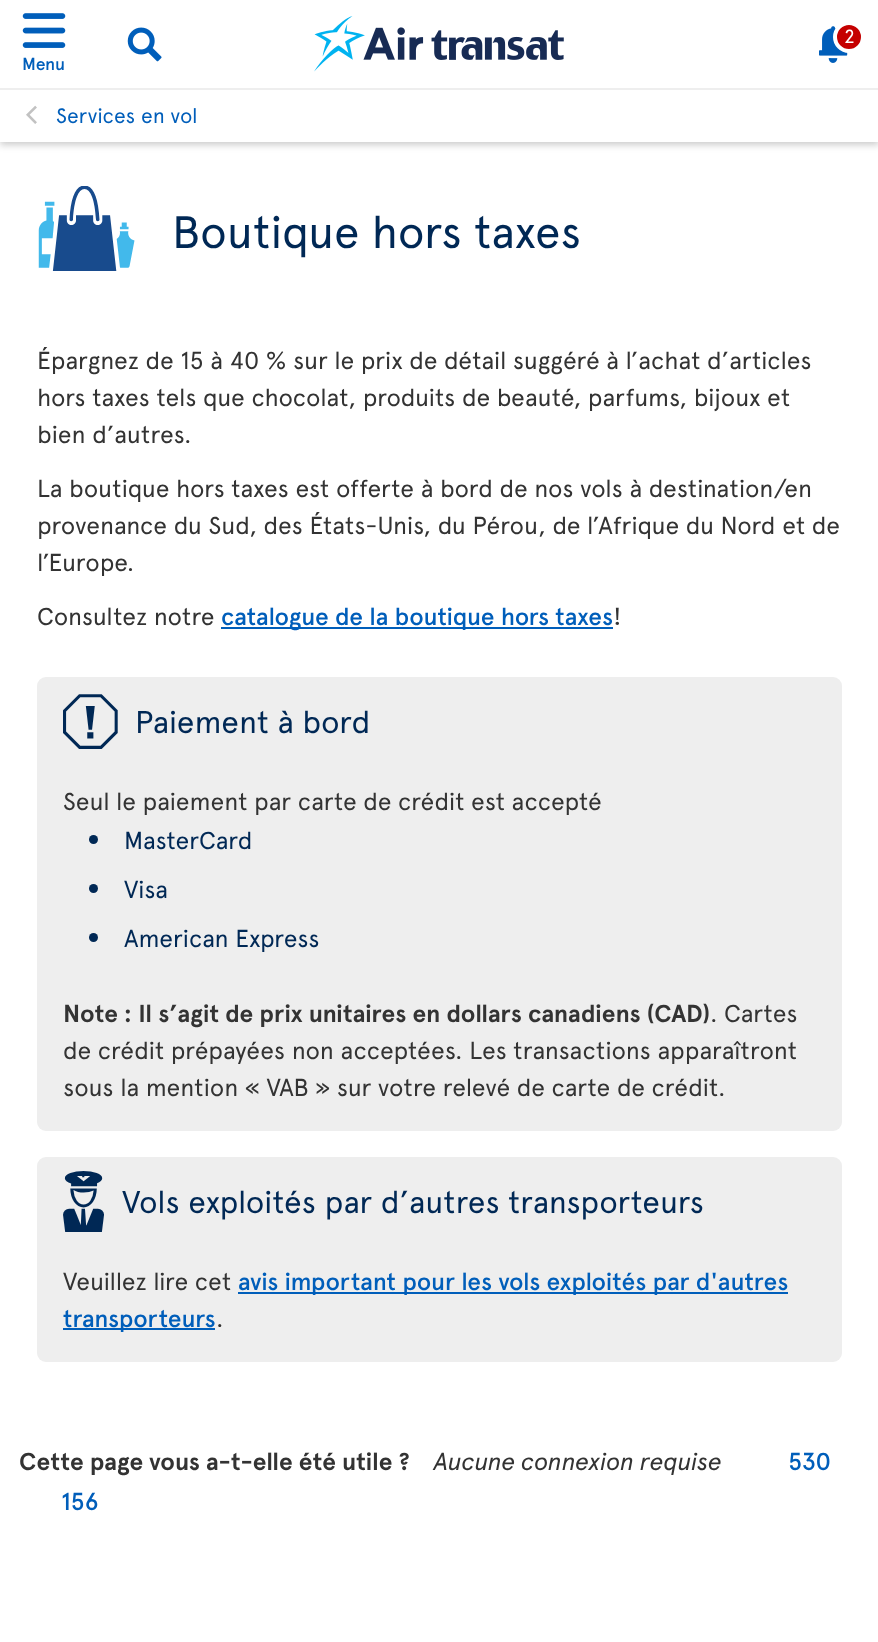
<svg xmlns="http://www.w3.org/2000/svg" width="878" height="1642">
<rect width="100%" height="100%" fill="#fff"/>
<rect y="4" width="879" height="141" fill="#00000033" filter="blur(3.5px)"/>
<rect width="878" height="142" fill="#fff"/>
<image x="314" y="16" width="250" height="56" href="media/1.png"/>
<image x="819" y="26" width="29" height="37" href="media/2.png"/>
<circle cx="849" cy="37" r="14" fill="#c50000" stroke="#fff" stroke-width="4"/>
<text x="844" y="43" style="font-family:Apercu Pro;font-size:19px;fill:#fff">2</text>
<image x="127" y="27" width="35" height="35" href="media/3.png"/>
<image x="22" y="13" width="44" height="35" href="media/4.png"/>
<text x="22" y="70" style="font-family:Apercu Pro;font-size:17.5px;font-weight:500;fill:#005eba">Menu</text>
<rect y="88" width="878" height="2" fill="#eee"/>
<text x="26" y="123" style="font-family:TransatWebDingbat;font-size:28px;fill:#c2c2c2">&lt;</text>
<text x="56" y="123" style="font-family:Apercu Pro;font-size:21px;fill:#005eba">Services en vol</text>
<image x="38" y="186" width="97" height="85" href="media/5.png"/>
<text x="172" y="248" style="font-family:Apercu Pro;font-size:45.5px;fill:#002855">Boutique hors taxes</text>
<text x="37" y="369" style="font-family:Apercu Pro;font-size:24.5px;fill:#333">Épargnez de 15 à 40 % sur le prix de détail suggéré à l’achat d’articles</text>
<text x="37" y="406" style="font-family:Apercu Pro;font-size:24.5px;fill:#333">hors taxes tels que chocolat, produits de beauté, parfums, bijoux et</text>
<text x="37" y="443" style="font-family:Apercu Pro;font-size:24.5px;fill:#333">bien d’autres.</text>
<text x="37" y="497" style="font-family:Apercu Pro;font-size:24.5px;fill:#333">La boutique hors taxes est offerte à bord de nos vols à destination/en</text>
<text x="37" y="534" style="font-family:Apercu Pro;font-size:24.5px;fill:#333">provenance du Sud, des États-Unis, du Pérou, de l’Afrique du Nord et de</text>
<text x="37" y="571" style="font-family:Apercu Pro;font-size:24.5px;fill:#333">l’Europe.</text>
<text x="37" y="625" style="font-family:Apercu Pro;font-size:24.5px;fill:#333">Consultez notre</text>
<rect x="221" y="627" width="392" height="2" fill="#005eba"/>
<text x="221" y="625" style="font-family:Apercu Pro;font-size:24.5px;font-weight:500;fill:#005eba">catalogue de la boutique hors taxes</text>
<text x="613" y="625" style="font-family:Apercu Pro;font-size:24.5px;fill:#333">!</text>
<rect x="37" y="677" width="805" height="454" rx="9" fill="#eee"/>
<text x="63" y="742" style="font-family:TransatWebDingbat;font-size:70px;fill:#002855">ü</text>
<text x="135" y="733" style="font-family:Apercu Pro;font-size:31.5px;fill:#002855">Paiement à bord</text>
<text x="63" y="810" style="font-family:Apercu Pro;font-size:24.5px;fill:#333">Seul le paiement par carte de crédit est accepté</text>
<circle cx="93.5" cy="839.5" r="4.5" fill="#002855"/>
<text x="124" y="849" style="font-family:Apercu Pro;font-size:24.5px;fill:#002855">MasterCard</text>
<circle cx="93.5" cy="888.5" r="4.5" fill="#002855"/>
<text x="124" y="898" style="font-family:Apercu Pro;font-size:24.5px;fill:#002855">Visa</text>
<circle cx="93.5" cy="937.5" r="4.5" fill="#002855"/>
<text x="124" y="947" style="font-family:Apercu Pro;font-size:24.5px;fill:#002855">American Express</text>
<text x="63" y="1022" style="font-family:Apercu Pro;font-size:24.5px;font-weight:bold;fill:#333">Note : Il s’agit de prix unitaires en dollars canadiens (CAD)</text>
<text x="710" y="1022" style="font-family:Apercu Pro;font-size:24.5px;fill:#333">. Cartes</text>
<text x="63" y="1059" style="font-family:Apercu Pro;font-size:24.5px;fill:#333">de crédit prépayées non acceptées. Les transactions apparaîtront</text>
<text x="63" y="1096" style="font-family:Apercu Pro;font-size:24.5px;fill:#333">sous la mention « VAB » sur votre relevé de carte de crédit.</text>
<rect x="37" y="1157" width="805" height="205" rx="9" fill="#eee"/>
<text x="63" y="1222" style="font-family:TransatWebDingbat;font-size:70px;fill:#002855">þ</text>
<text x="122" y="1213" style="font-family:Apercu Pro;font-size:31.5px;fill:#002855">Vols exploités par d’autres transporteurs</text>
<text x="63" y="1290" style="font-family:Apercu Pro;font-size:24.5px;fill:#333">Veuillez lire cet</text>
<rect x="238" y="1292" width="550" height="2" fill="#005eba"/>
<text x="238" y="1290" style="font-family:Apercu Pro;font-size:24.5px;font-weight:500;fill:#005eba">avis important pour les vols exploités par d'autres</text>
<rect x="63" y="1328" width="152" height="2" fill="#005eba"/>
<text x="63" y="1327" style="font-family:Apercu Pro;font-size:24.5px;font-weight:500;fill:#005eba">transporteurs</text>
<text x="216" y="1327" style="font-family:Apercu Pro;font-size:24.5px;fill:#333">.</text>
<text x="19" y="1470" style="font-family:Apercu Pro;font-size:24.5px;font-weight:bold;fill:#333">Cette page vous a-t-elle été utile ?</text>
<text x="434" y="1470" style="font-family:Apercu Pro;font-size:24.5px;font-style:italic;fill:#333">Aucune connexion requise</text>
<text x="788" y="1470" style="font-family:Apercu Pro;font-size:24.5px;font-weight:500;fill:#005eba">530</text>
<text x="61" y="1510" style="font-family:Apercu Pro;font-size:24.5px;font-weight:500;fill:#005eba">156</text>
</svg>
